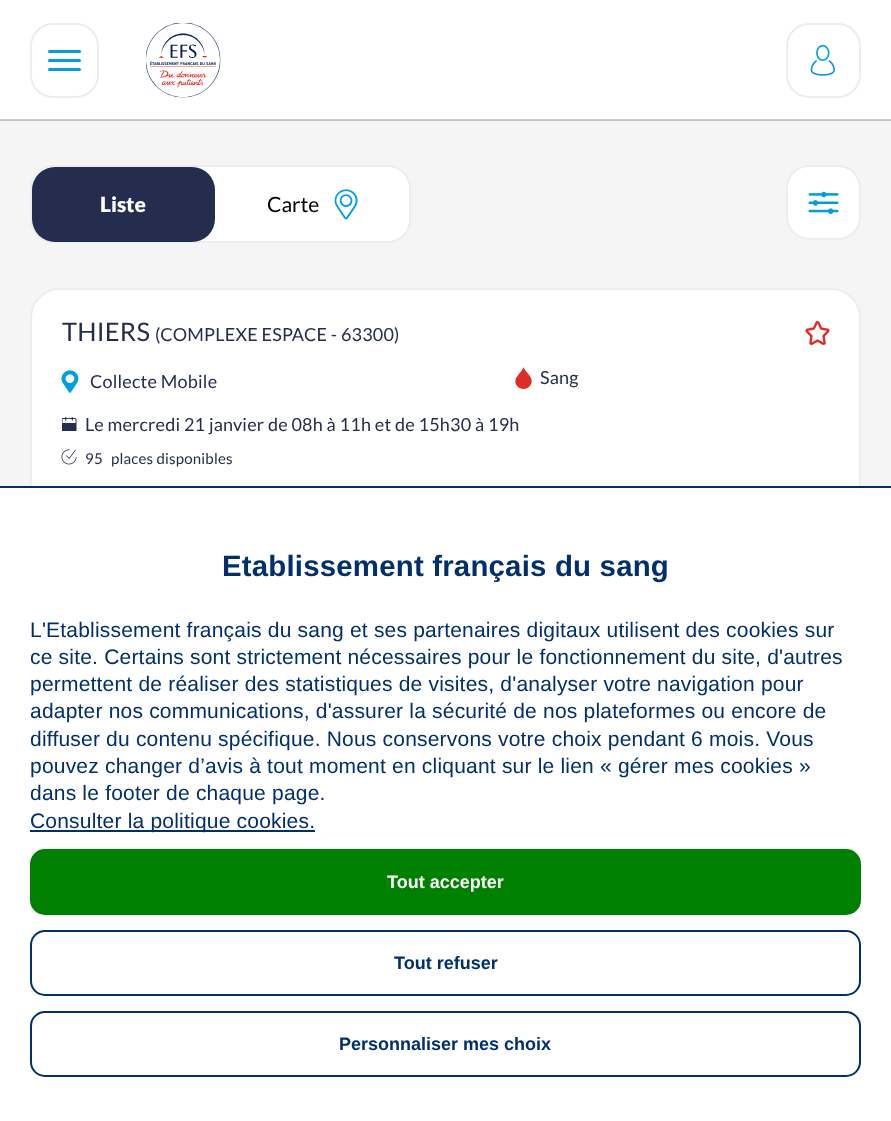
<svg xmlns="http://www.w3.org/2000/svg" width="891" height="1121">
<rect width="100%" height="100%" fill="#fff"/>
<rect y="119" width="891" height="1" fill="#ccc"/>
<rect x="31" y="24" width="67" height="73" rx="22" fill="none" stroke="#ededed" stroke-width="2"/>
<rect x="48" y="50" width="33" height="3" rx="1.5" fill="#009de0"/>
<rect x="48" y="59" width="33" height="3" rx="1.5" fill="#009de0"/>
<rect x="48" y="68" width="33" height="3" rx="1.5" fill="#009de0"/>
<image x="146" y="23" width="75" height="75" href="media/1.png"/>
<rect x="787" y="24" width="73" height="73" rx="22" fill="none" stroke="#ededed" stroke-width="2"/>
<image x="810" y="44" width="25" height="32" href="media/2.png"/>
<rect y="121" width="891" height="365" fill="#f5f5f5"/>
<rect y="120" width="891" height="1" fill="#c4c4c4"/>
<rect x="31" y="166" width="379" height="76" rx="22" fill="#fff" stroke="#ededed" stroke-width="2"/>
<rect x="32" y="167" width="183" height="75" rx="23" fill="#252d4e"/>
<text x="100" y="212" style="font-family:Lato;font-size:21px;font-weight:900;fill:#fff">Liste</text>
<text x="267" y="212" style="font-family:Lato;font-size:21px;fill:#000">Carte</text>
<image x="334" y="189" width="24" height="31" href="media/3.png"/>
<rect x="787" y="166" width="73" height="73" rx="22" fill="#fff" stroke="#ededed" stroke-width="2"/>
<image x="808" y="191" width="31" height="23" href="media/4.png"/>
<rect x="31" y="289" width="829" height="321" rx="29" fill="#fff" stroke="#ededed" stroke-width="2"/>
<text x="62" y="341" style="font-family:Lato;font-size:25.5px;letter-spacing:0.2px;fill:#252d4e">THIERS</text>
<text x="155" y="341" style="font-family:Lato;font-size:18px;letter-spacing:0.2px;fill:#252d4e">(COMPLEXE ESPACE - 63300)</text>
<image x="805" y="321" width="25" height="24" href="media/5.png"/>
<image x="61" y="370" width="18" height="23" href="media/6.png"/>
<text x="90" y="388" style="font-family:Lato;font-size:18px;letter-spacing:0.2px;fill:#252d4e">Collecte Mobile</text>
<image x="515" y="367" width="17" height="22" href="media/7.png"/>
<text x="540" y="384" style="font-family:Lato;font-size:18px;letter-spacing:0.2px;fill:#252d4e">Sang</text>
<image x="62" y="417" width="15" height="14" href="media/8.png"/>
<text x="85" y="431" style="font-family:Lato;font-size:18px;letter-spacing:0.2px;fill:#252d4e">Le mercredi 21 janvier de 08h à 11h et de 15h30 à 19h</text>
<image x="61" y="449" width="16" height="16" href="media/9.png"/>
<text x="85" y="464" style="font-family:Lato;font-size:15px;letter-spacing:0.2px;fill:#252d4e">95</text>
<text x="111" y="464" style="font-family:Lato;font-size:15px;letter-spacing:0.2px;fill:#252d4e">places disponibles</text>
<rect x="30" y="488" width="831" height="123" fill="#fff"/>
<rect y="486" width="891" height="2" fill="#002f6c"/>
<text x="222" y="576" style="font-family:Liberation Sans;font-size:29.4px;font-weight:bold;letter-spacing:0.2px;fill:#002f6c">Etablissement français du sang</text>
<text x="30" y="637" style="font-family:Liberation Sans;font-size:21px;letter-spacing:0.2px;fill:#002f6c">L'Etablissement français du sang et ses partenaires digitaux utilisent des cookies sur</text>
<text x="30" y="664" style="font-family:Liberation Sans;font-size:21px;letter-spacing:0.2px;fill:#002f6c">ce site. Certains sont strictement nécessaires pour le fonctionnement du site, d'autres</text>
<text x="30" y="691" style="font-family:Liberation Sans;font-size:21px;letter-spacing:0.2px;fill:#002f6c">permettent de réaliser des statistiques de visites, d'analyser votre navigation pour</text>
<text x="30" y="718" style="font-family:Liberation Sans;font-size:21px;letter-spacing:0.2px;fill:#002f6c">adapter nos communications, d'assurer la sécurité de nos plateformes ou encore de</text>
<text x="30" y="746" style="font-family:Liberation Sans;font-size:21px;letter-spacing:0.2px;fill:#002f6c">diffuser du contenu spécifique. Nous conservons votre choix pendant 6 mois. Vous</text>
<text x="30" y="773" style="font-family:Liberation Sans;font-size:21px;letter-spacing:0.2px;fill:#002f6c">pouvez changer d’avis à tout moment en cliquant sur le lien « gérer mes cookies »</text>
<text x="30" y="800" style="font-family:Liberation Sans;font-size:21px;letter-spacing:0.2px;fill:#002f6c">dans le footer de chaque page.</text>
<rect x="30" y="830" width="285" height="2" fill="#002f6c"/>
<text x="30" y="828" style="font-family:Liberation Sans;font-size:21px;letter-spacing:0.2px;fill:#002f6c">Consulter la politique cookies.</text>
<rect x="31" y="850" width="829" height="64" rx="14" fill="#008000" stroke="#008000" stroke-width="2"/>
<text x="387" y="888" style="font-family:Liberation Sans;font-size:18px;font-weight:bold;fill:#fff">Tout accepter</text>
<rect x="31" y="931" width="829" height="64" rx="14" fill="none" stroke="#002f6c" stroke-width="2"/>
<text x="394" y="969" style="font-family:Liberation Sans;font-size:18px;font-weight:bold;fill:#002f6c">Tout refuser</text>
<rect x="31" y="1012" width="829" height="64" rx="14" fill="none" stroke="#002f6c" stroke-width="2"/>
<text x="339" y="1050" style="font-family:Liberation Sans;font-size:18px;font-weight:bold;fill:#002f6c">Personnaliser mes choix</text>
</svg>
